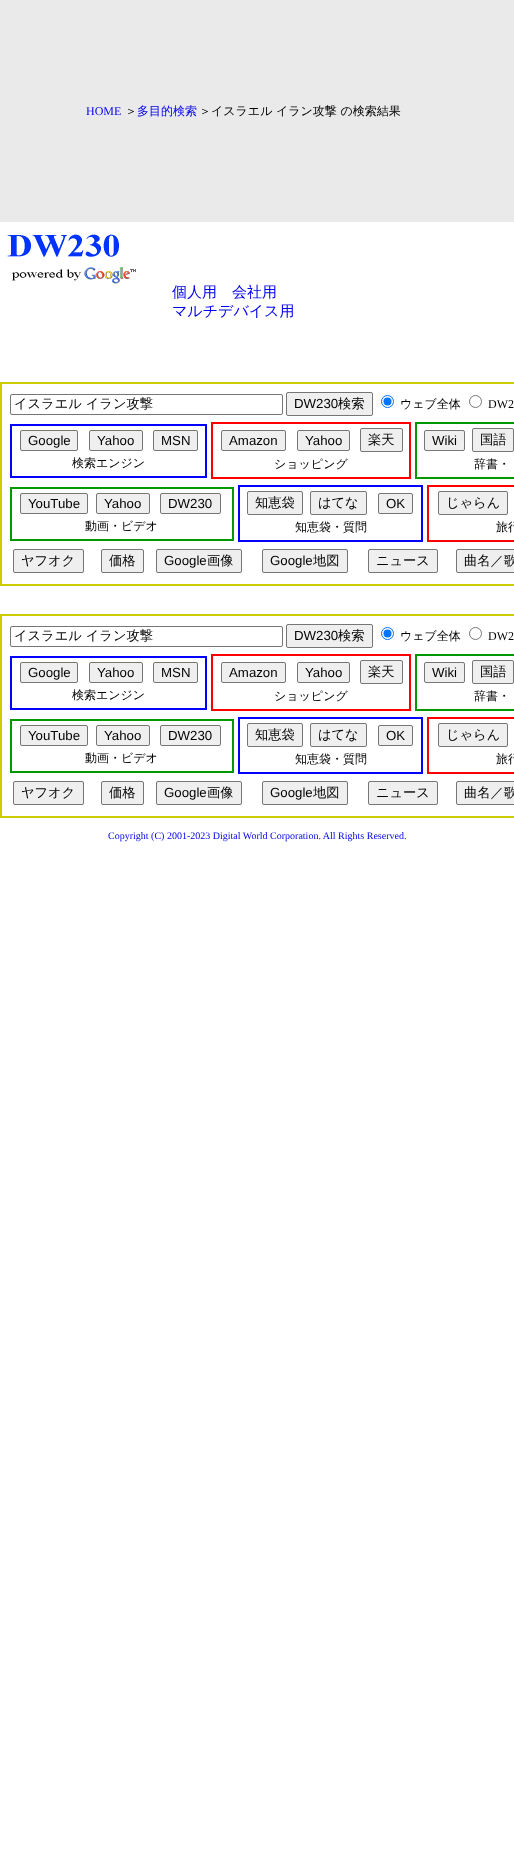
<svg xmlns="http://www.w3.org/2000/svg" width="514" height="1851">
<rect width="100%" height="100%" fill="#fff"/>
<rect width="514" height="222" fill="#eaeaea"/>
<text x="86" y="115" style="font-family:Liberation Serif;font-size:12px;fill:#00e">HOME</text>
<text x="125" y="115" style="font-family:WenQuanYi Zen Hei;font-size:12px;font-weight:500;fill:#000">＞</text>
<text x="137" y="115" style="font-family:WenQuanYi Zen Hei;font-size:12px;font-weight:500;fill:#00e">多目的検索</text>
<text x="199" y="115" style="font-family:WenQuanYi Zen Hei;font-size:12px;font-weight:500;fill:#000">＞イスラエル イラン攻撃 の検索結果</text>
<image x="7" y="234" width="129" height="50" href="media/1.png"/>
<text x="172" y="297" style="font-family:WenQuanYi Zen Hei;font-size:15px;font-weight:500;fill:#00e">個人用</text>
<text x="232" y="297" style="font-family:WenQuanYi Zen Hei;font-size:15px;font-weight:500;fill:#00e">会社用</text>
<text x="172" y="316" style="font-family:WenQuanYi Zen Hei;font-size:15px;font-weight:500;fill:#00e">マルチデバイス用</text>
<rect y="382" width="514" height="204" fill="#cc0"/>
<rect x="2" y="384" width="512" height="200" fill="#fff"/>
<rect x="10.5" y="394.5" width="272" height="20" rx="1.5" fill="none" stroke="#767676"/>
<text x="14" y="408" style="font-family:WenQuanYi Zen Hei;font-size:13.25px;font-weight:500;fill:#000">イスラエル イラン攻撃</text>
<rect x="286.5" y="392.5" width="86" height="23" rx="1.5" fill="#efefef" stroke="#767676"/>
<text x="294" y="408" style="font-family:Liberation Sans;font-size:13.25px;fill:#000">DW230</text>
<text x="338" y="408" style="font-family:WenQuanYi Zen Hei;font-size:13.25px;font-weight:500;fill:#000">検索</text>
<circle cx="387.5" cy="401.5" r="6" fill="none" stroke="#0075ff"/>
<circle cx="387.5" cy="401.5" r="4" fill="#0075ff"/>
<text x="400" y="408" style="font-family:WenQuanYi Zen Hei;font-size:12px;font-weight:500;fill:#000">ウェブ全体</text>
<circle cx="475.5" cy="401.5" r="6" fill="none" stroke="#767676"/>
<text x="488" y="408" style="font-family:Liberation Serif;font-size:12px;fill:#000">DW2</text>
<rect x="10" y="424" width="197" height="54" fill="#00f"/>
<rect x="12" y="426" width="193" height="50" fill="#fff"/>
<rect x="20.5" y="430.5" width="57" height="20" rx="1.5" fill="#efefef" stroke="#767676"/>
<text x="28" y="445" style="font-family:Liberation Sans;font-size:13.25px;fill:#000">Google</text>
<rect x="89.5" y="430.5" width="53" height="20" rx="1.5" fill="#efefef" stroke="#767676"/>
<text x="97" y="445" style="font-family:Liberation Sans;font-size:13.25px;fill:#000">Yahoo</text>
<rect x="153.5" y="430.5" width="44" height="20" rx="1.5" fill="#efefef" stroke="#767676"/>
<text x="161" y="445" style="font-family:Liberation Sans;font-size:13.25px;fill:#000">MSN</text>
<text x="72" y="467" style="font-family:WenQuanYi Zen Hei;font-size:12px;font-weight:500;fill:#000">検索エンジン</text>
<rect x="211" y="422" width="200" height="57" fill="#f00"/>
<rect x="213" y="424" width="196" height="53" fill="#fff"/>
<rect x="221.5" y="430.5" width="64" height="20" rx="1.5" fill="#efefef" stroke="#767676"/>
<text x="229" y="445" style="font-family:Liberation Sans;font-size:13.25px;fill:#000">Amazon</text>
<rect x="297.5" y="430.5" width="52" height="20" rx="1.5" fill="#efefef" stroke="#767676"/>
<text x="305" y="445" style="font-family:Liberation Sans;font-size:13.25px;fill:#000">Yahoo</text>
<rect x="360.5" y="428.5" width="42" height="23" rx="1.5" fill="#efefef" stroke="#767676"/>
<text x="368" y="444" style="font-family:WenQuanYi Zen Hei;font-size:13.25px;font-weight:500;fill:#000">楽天</text>
<text x="274" y="468" style="font-family:WenQuanYi Zen Hei;font-size:12px;font-weight:500;fill:#000">ショッピング</text>
<rect x="415" y="422" width="99" height="57" fill="#090"/>
<rect x="417" y="424" width="97" height="53" fill="#fff"/>
<rect x="424.5" y="430.5" width="40" height="20" rx="1.5" fill="#efefef" stroke="#767676"/>
<text x="432" y="445" style="font-family:Liberation Sans;font-size:13.25px;fill:#000">Wiki</text>
<rect x="472.5" y="428.5" width="41" height="23" rx="1.5" fill="#efefef" stroke="#767676"/>
<text x="480" y="444" style="font-family:WenQuanYi Zen Hei;font-size:13.25px;font-weight:500;fill:#000">国語</text>
<text x="474" y="468" style="font-family:WenQuanYi Zen Hei;font-size:12px;font-weight:500;fill:#000">辞書・</text>
<rect x="10" y="487" width="224" height="54" fill="#090"/>
<rect x="12" y="489" width="220" height="50" fill="#fff"/>
<rect x="20.5" y="493.5" width="67" height="20" rx="1.5" fill="#efefef" stroke="#767676"/>
<text x="28" y="508" style="font-family:Liberation Sans;font-size:13.25px;fill:#000">YouTube</text>
<rect x="96.5" y="493.5" width="53" height="20" rx="1.5" fill="#efefef" stroke="#767676"/>
<text x="104" y="508" style="font-family:Liberation Sans;font-size:13.25px;fill:#000">Yahoo</text>
<rect x="160.5" y="493.5" width="60" height="20" rx="1.5" fill="#efefef" stroke="#767676"/>
<text x="168" y="508" style="font-family:Liberation Sans;font-size:13.25px;fill:#000">DW230</text>
<text x="85" y="530" style="font-family:WenQuanYi Zen Hei;font-size:12px;font-weight:500;fill:#000">動画・ビデオ</text>
<rect x="238" y="485" width="185" height="57" fill="#00f"/>
<rect x="240" y="487" width="181" height="53" fill="#fff"/>
<rect x="247.5" y="491.5" width="55" height="23" rx="1.5" fill="#efefef" stroke="#767676"/>
<text x="255" y="507" style="font-family:WenQuanYi Zen Hei;font-size:13.25px;font-weight:500;fill:#000">知恵袋</text>
<rect x="310.5" y="491.5" width="56" height="23" rx="1.5" fill="#efefef" stroke="#767676"/>
<text x="318" y="507" style="font-family:WenQuanYi Zen Hei;font-size:13.25px;font-weight:500;fill:#000">はてな</text>
<rect x="378.5" y="493.5" width="34" height="20" rx="1.5" fill="#efefef" stroke="#767676"/>
<text x="386" y="508" style="font-family:Liberation Sans;font-size:13.25px;fill:#000">OK</text>
<text x="295" y="531" style="font-family:WenQuanYi Zen Hei;font-size:12px;font-weight:500;fill:#000">知恵袋・質問</text>
<rect x="427" y="485" width="87" height="57" fill="#f00"/>
<rect x="429" y="487" width="85" height="53" fill="#fff"/>
<rect x="438.5" y="491.5" width="69" height="23" rx="1.5" fill="#efefef" stroke="#767676"/>
<text x="446" y="507" style="font-family:WenQuanYi Zen Hei;font-size:13.25px;font-weight:500;fill:#000">じゃらん</text>
<text x="496" y="531" style="font-family:WenQuanYi Zen Hei;font-size:12px;font-weight:500;fill:#000">旅行</text>
<rect x="13.5" y="549.5" width="70" height="23" rx="1.5" fill="#efefef" stroke="#767676"/>
<text x="21" y="565" style="font-family:WenQuanYi Zen Hei;font-size:13.25px;font-weight:500;fill:#000">ヤフオク</text>
<rect x="101.5" y="549.5" width="42" height="23" rx="1.5" fill="#efefef" stroke="#767676"/>
<text x="109" y="565" style="font-family:WenQuanYi Zen Hei;font-size:13.25px;font-weight:500;fill:#000">価格</text>
<rect x="156.5" y="549.5" width="85" height="23" rx="1.5" fill="#efefef" stroke="#767676"/>
<text x="164" y="565" style="font-family:Liberation Sans;font-size:13.25px;fill:#000">Google</text>
<text x="207" y="565" style="font-family:WenQuanYi Zen Hei;font-size:13.25px;font-weight:500;fill:#000">画像</text>
<rect x="262.5" y="549.5" width="85" height="23" rx="1.5" fill="#efefef" stroke="#767676"/>
<text x="270" y="565" style="font-family:Liberation Sans;font-size:13.25px;fill:#000">Google</text>
<text x="313" y="565" style="font-family:WenQuanYi Zen Hei;font-size:13.25px;font-weight:500;fill:#000">地図</text>
<rect x="368.5" y="549.5" width="69" height="23" rx="1.5" fill="#efefef" stroke="#767676"/>
<text x="376" y="565" style="font-family:WenQuanYi Zen Hei;font-size:13.25px;font-weight:500;fill:#000">ニュース</text>
<rect x="456.5" y="549.5" width="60" height="23" rx="1.5" fill="#efefef" stroke="#767676"/>
<text x="464" y="565" style="font-family:WenQuanYi Zen Hei;font-size:13.25px;font-weight:500;fill:#000">曲名／歌</text>
<rect y="614" width="514" height="204" fill="#cc0"/>
<rect x="2" y="616" width="512" height="200" fill="#fff"/>
<rect x="10.5" y="626.5" width="272" height="20" rx="1.5" fill="none" stroke="#767676"/>
<text x="14" y="640" style="font-family:WenQuanYi Zen Hei;font-size:13.25px;font-weight:500;fill:#000">イスラエル イラン攻撃</text>
<rect x="286.5" y="624.5" width="86" height="23" rx="1.5" fill="#efefef" stroke="#767676"/>
<text x="294" y="640" style="font-family:Liberation Sans;font-size:13.25px;fill:#000">DW230</text>
<text x="338" y="640" style="font-family:WenQuanYi Zen Hei;font-size:13.25px;font-weight:500;fill:#000">検索</text>
<circle cx="387.5" cy="633.5" r="6" fill="none" stroke="#0075ff"/>
<circle cx="387.5" cy="633.5" r="4" fill="#0075ff"/>
<text x="400" y="640" style="font-family:WenQuanYi Zen Hei;font-size:12px;font-weight:500;fill:#000">ウェブ全体</text>
<circle cx="475.5" cy="633.5" r="6" fill="none" stroke="#767676"/>
<text x="488" y="640" style="font-family:Liberation Serif;font-size:12px;fill:#000">DW2</text>
<rect x="10" y="656" width="197" height="54" fill="#00f"/>
<rect x="12" y="658" width="193" height="50" fill="#fff"/>
<rect x="20.5" y="662.5" width="57" height="20" rx="1.5" fill="#efefef" stroke="#767676"/>
<text x="28" y="677" style="font-family:Liberation Sans;font-size:13.25px;fill:#000">Google</text>
<rect x="89.5" y="662.5" width="53" height="20" rx="1.5" fill="#efefef" stroke="#767676"/>
<text x="97" y="677" style="font-family:Liberation Sans;font-size:13.25px;fill:#000">Yahoo</text>
<rect x="153.5" y="662.5" width="44" height="20" rx="1.5" fill="#efefef" stroke="#767676"/>
<text x="161" y="677" style="font-family:Liberation Sans;font-size:13.25px;fill:#000">MSN</text>
<text x="72" y="699" style="font-family:WenQuanYi Zen Hei;font-size:12px;font-weight:500;fill:#000">検索エンジン</text>
<rect x="211" y="654" width="200" height="57" fill="#f00"/>
<rect x="213" y="656" width="196" height="53" fill="#fff"/>
<rect x="221.5" y="662.5" width="64" height="20" rx="1.5" fill="#efefef" stroke="#767676"/>
<text x="229" y="677" style="font-family:Liberation Sans;font-size:13.25px;fill:#000">Amazon</text>
<rect x="297.5" y="662.5" width="52" height="20" rx="1.5" fill="#efefef" stroke="#767676"/>
<text x="305" y="677" style="font-family:Liberation Sans;font-size:13.25px;fill:#000">Yahoo</text>
<rect x="360.5" y="660.5" width="42" height="23" rx="1.5" fill="#efefef" stroke="#767676"/>
<text x="368" y="676" style="font-family:WenQuanYi Zen Hei;font-size:13.25px;font-weight:500;fill:#000">楽天</text>
<text x="274" y="700" style="font-family:WenQuanYi Zen Hei;font-size:12px;font-weight:500;fill:#000">ショッピング</text>
<rect x="415" y="654" width="99" height="57" fill="#090"/>
<rect x="417" y="656" width="97" height="53" fill="#fff"/>
<rect x="424.5" y="662.5" width="40" height="20" rx="1.5" fill="#efefef" stroke="#767676"/>
<text x="432" y="677" style="font-family:Liberation Sans;font-size:13.25px;fill:#000">Wiki</text>
<rect x="472.5" y="660.5" width="41" height="23" rx="1.5" fill="#efefef" stroke="#767676"/>
<text x="480" y="676" style="font-family:WenQuanYi Zen Hei;font-size:13.25px;font-weight:500;fill:#000">国語</text>
<text x="474" y="700" style="font-family:WenQuanYi Zen Hei;font-size:12px;font-weight:500;fill:#000">辞書・</text>
<rect x="10" y="719" width="224" height="54" fill="#090"/>
<rect x="12" y="721" width="220" height="50" fill="#fff"/>
<rect x="20.5" y="725.5" width="67" height="20" rx="1.5" fill="#efefef" stroke="#767676"/>
<text x="28" y="740" style="font-family:Liberation Sans;font-size:13.25px;fill:#000">YouTube</text>
<rect x="96.5" y="725.5" width="53" height="20" rx="1.5" fill="#efefef" stroke="#767676"/>
<text x="104" y="740" style="font-family:Liberation Sans;font-size:13.25px;fill:#000">Yahoo</text>
<rect x="160.5" y="725.5" width="60" height="20" rx="1.5" fill="#efefef" stroke="#767676"/>
<text x="168" y="740" style="font-family:Liberation Sans;font-size:13.25px;fill:#000">DW230</text>
<text x="85" y="762" style="font-family:WenQuanYi Zen Hei;font-size:12px;font-weight:500;fill:#000">動画・ビデオ</text>
<rect x="238" y="717" width="185" height="57" fill="#00f"/>
<rect x="240" y="719" width="181" height="53" fill="#fff"/>
<rect x="247.5" y="723.5" width="55" height="23" rx="1.5" fill="#efefef" stroke="#767676"/>
<text x="255" y="739" style="font-family:WenQuanYi Zen Hei;font-size:13.25px;font-weight:500;fill:#000">知恵袋</text>
<rect x="310.5" y="723.5" width="56" height="23" rx="1.5" fill="#efefef" stroke="#767676"/>
<text x="318" y="739" style="font-family:WenQuanYi Zen Hei;font-size:13.25px;font-weight:500;fill:#000">はてな</text>
<rect x="378.5" y="725.5" width="34" height="20" rx="1.5" fill="#efefef" stroke="#767676"/>
<text x="386" y="740" style="font-family:Liberation Sans;font-size:13.25px;fill:#000">OK</text>
<text x="295" y="763" style="font-family:WenQuanYi Zen Hei;font-size:12px;font-weight:500;fill:#000">知恵袋・質問</text>
<rect x="427" y="717" width="87" height="57" fill="#f00"/>
<rect x="429" y="719" width="85" height="53" fill="#fff"/>
<rect x="438.5" y="723.5" width="69" height="23" rx="1.5" fill="#efefef" stroke="#767676"/>
<text x="446" y="739" style="font-family:WenQuanYi Zen Hei;font-size:13.25px;font-weight:500;fill:#000">じゃらん</text>
<text x="496" y="763" style="font-family:WenQuanYi Zen Hei;font-size:12px;font-weight:500;fill:#000">旅行</text>
<rect x="13.5" y="781.5" width="70" height="23" rx="1.5" fill="#efefef" stroke="#767676"/>
<text x="21" y="797" style="font-family:WenQuanYi Zen Hei;font-size:13.25px;font-weight:500;fill:#000">ヤフオク</text>
<rect x="101.5" y="781.5" width="42" height="23" rx="1.5" fill="#efefef" stroke="#767676"/>
<text x="109" y="797" style="font-family:WenQuanYi Zen Hei;font-size:13.25px;font-weight:500;fill:#000">価格</text>
<rect x="156.5" y="781.5" width="85" height="23" rx="1.5" fill="#efefef" stroke="#767676"/>
<text x="164" y="797" style="font-family:Liberation Sans;font-size:13.25px;fill:#000">Google</text>
<text x="207" y="797" style="font-family:WenQuanYi Zen Hei;font-size:13.25px;font-weight:500;fill:#000">画像</text>
<rect x="262.5" y="781.5" width="85" height="23" rx="1.5" fill="#efefef" stroke="#767676"/>
<text x="270" y="797" style="font-family:Liberation Sans;font-size:13.25px;fill:#000">Google</text>
<text x="313" y="797" style="font-family:WenQuanYi Zen Hei;font-size:13.25px;font-weight:500;fill:#000">地図</text>
<rect x="368.5" y="781.5" width="69" height="23" rx="1.5" fill="#efefef" stroke="#767676"/>
<text x="376" y="797" style="font-family:WenQuanYi Zen Hei;font-size:13.25px;font-weight:500;fill:#000">ニュース</text>
<rect x="456.5" y="781.5" width="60" height="23" rx="1.5" fill="#efefef" stroke="#767676"/>
<text x="464" y="797" style="font-family:WenQuanYi Zen Hei;font-size:13.25px;font-weight:500;fill:#000">曲名／歌</text>
<text x="108" y="839" style="font-family:Liberation Serif;font-size:10px;fill:#00e">Copyright (C) 2001-2023 Digital World Corporation. All Rights Reserved.</text>
</svg>
